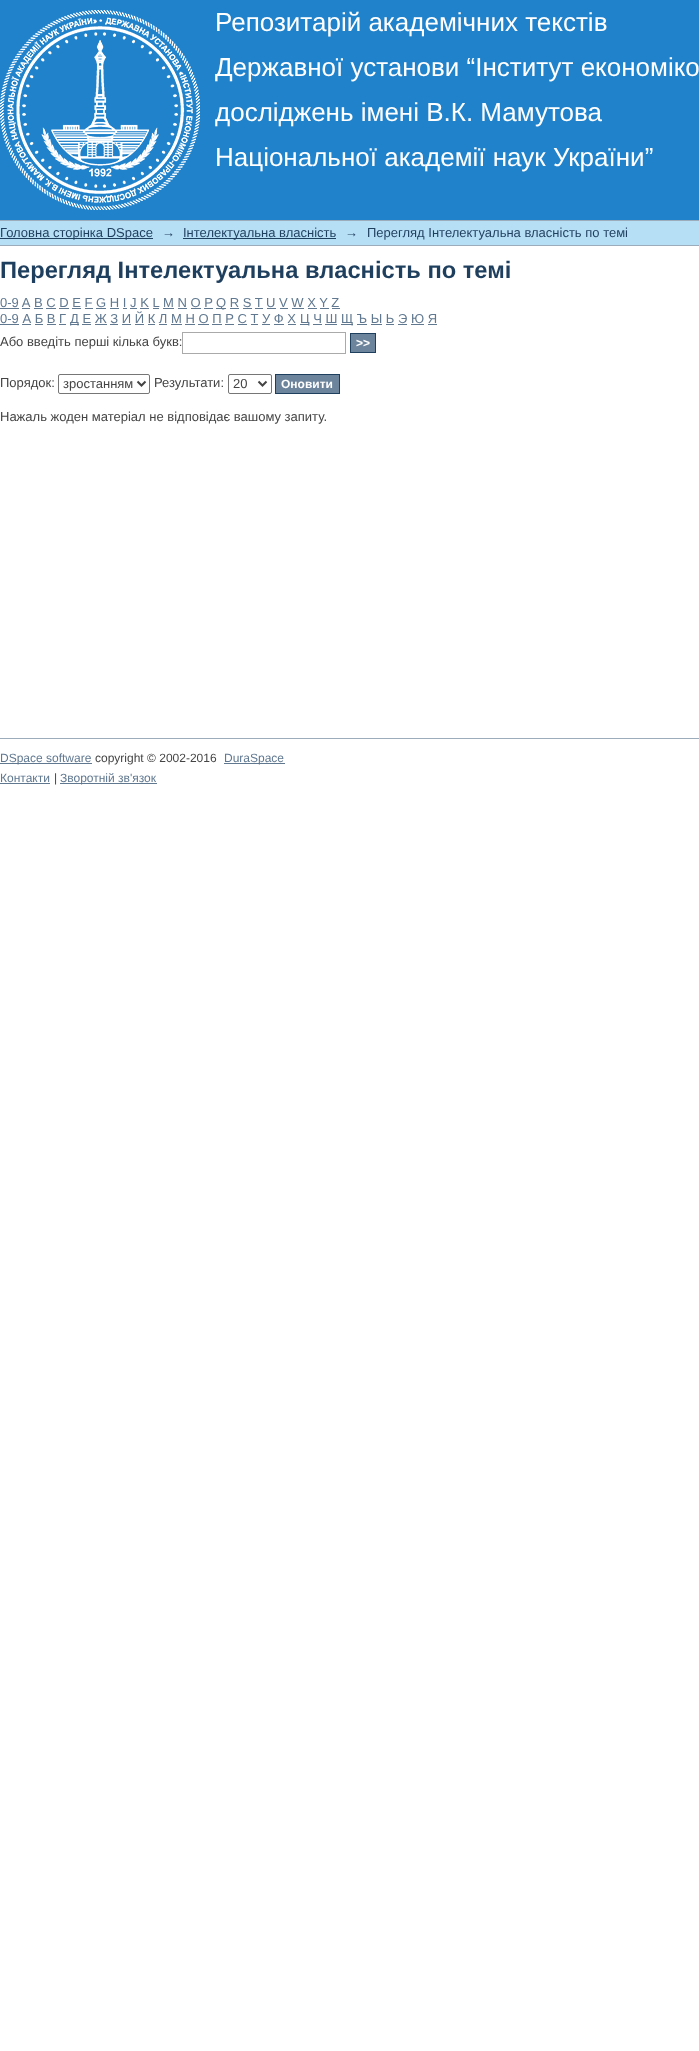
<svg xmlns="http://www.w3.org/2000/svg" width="699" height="2051">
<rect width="100%" height="100%" fill="#fff"/>
<rect width="699" height="220" fill="#2082cb"/>
<image x="0" y="10" width="200" height="200" href="media/1.png"/>
<text x="215" y="31" style="font-family:Liberation Sans;font-size:26px;fill:#fff">Репозитарій академічних текстів</text>
<text x="215" y="76" style="font-family:Liberation Sans;font-size:26px;fill:#fff">Державної установи “Інститут економіко</text>
<text x="215" y="121" style="font-family:Liberation Sans;font-size:26px;fill:#fff">досліджень імені В.К. Мамутова</text>
<text x="215" y="166" style="font-family:Liberation Sans;font-size:26px;fill:#fff">Національної академії наук України”</text>
<rect y="221" width="699" height="24" fill="#b6def4"/>
<rect y="220" width="699" height="1" fill="#9cacba"/>
<rect y="245" width="699" height="1" fill="#9cacba"/>
<rect y="238" width="153" height="1" fill="#1f3f5e"/>
<text x="0" y="237" style="font-family:Liberation Sans;font-size:13px;fill:#1f3f5e">Головна сторінка DSpace</text>
<text x="162" y="237" style="font-family:Liberation Sans;font-size:13px;fill:#1f3f5e">→</text>
<rect x="183" y="238" width="153" height="1" fill="#1f3f5e"/>
<text x="183" y="237" style="font-family:Liberation Sans;font-size:13px;fill:#1f3f5e">Інтелектуальна власність</text>
<text x="345" y="237" style="font-family:Liberation Sans;font-size:13px;fill:#1f3f5e">→</text>
<text x="367" y="237" style="font-family:Liberation Sans;font-size:13px;fill:#1f3f5e">Перегляд Інтелектуальна власність по темі</text>
<text x="0" y="278" style="font-family:Liberation Sans;font-size:23.7px;font-weight:bold;fill:#1f3f5e">Перегляд Інтелектуальна власність по темі</text>
<text x="0" y="307" style="font-family:Liberation Sans;font-size:13px;fill:#607890">0-9 A</text>
<rect y="308" width="19" height="1" fill="#607890"/>
<text x="34" y="307" style="font-family:Liberation Sans;font-size:13px;fill:#607890">B C D E F G H I J K L</text>
<rect x="34" y="308" width="9" height="1" fill="#607890"/>
<text x="163" y="307" style="font-family:Liberation Sans;font-size:13px;fill:#607890">M N O P</text>
<rect x="163" y="308" width="11" height="1" fill="#607890"/>
<rect x="216" y="308" width="10" height="1" fill="#607890"/>
<text x="216" y="307" style="font-family:Liberation Sans;font-size:13px;fill:#607890">Q R S T U V W X Y Z</text>
<rect x="22" y="308" width="8" height="1" fill="#607890"/>
<rect x="46" y="308" width="10" height="1" fill="#607890"/>
<rect x="59" y="308" width="10" height="1" fill="#607890"/>
<rect x="72" y="308" width="9" height="1" fill="#607890"/>
<rect x="85" y="308" width="8" height="1" fill="#607890"/>
<rect x="96" y="308" width="10" height="1" fill="#607890"/>
<rect x="110" y="308" width="9" height="1" fill="#607890"/>
<rect x="123" y="308" width="4" height="1" fill="#607890"/>
<rect x="130" y="308" width="7" height="1" fill="#607890"/>
<rect x="140" y="308" width="9" height="1" fill="#607890"/>
<rect x="153" y="308" width="6" height="1" fill="#607890"/>
<rect x="178" y="308" width="9" height="1" fill="#607890"/>
<rect x="191" y="308" width="10" height="1" fill="#607890"/>
<rect x="204" y="308" width="9" height="1" fill="#607890"/>
<rect x="230" y="308" width="9" height="1" fill="#607890"/>
<rect x="243" y="308" width="9" height="1" fill="#607890"/>
<rect x="255" y="308" width="8" height="1" fill="#607890"/>
<rect x="267" y="308" width="9" height="1" fill="#607890"/>
<rect x="280" y="308" width="8" height="1" fill="#607890"/>
<rect x="292" y="308" width="12" height="1" fill="#607890"/>
<rect x="308" y="308" width="9" height="1" fill="#607890"/>
<rect x="320" y="308" width="9" height="1" fill="#607890"/>
<rect x="332" y="308" width="8" height="1" fill="#607890"/>
<text x="0" y="323" style="font-family:Liberation Sans;font-size:13px;fill:#607890">0-9 А Б В Г</text>
<rect y="324" width="19" height="1" fill="#607890"/>
<rect x="70" y="324" width="9" height="1" fill="#607890"/>
<text x="70" y="323" style="font-family:Liberation Sans;font-size:13px;fill:#607890">Д Е Ж З И Й К Л М Н О П Р С Т У Ф Х</text>
<rect x="300" y="324" width="9" height="1" fill="#607890"/>
<text x="300" y="323" style="font-family:Liberation Sans;font-size:13px;fill:#607890">Ц Ч Ш</text>
<rect x="341" y="324" width="12" height="1" fill="#607890"/>
<text x="341" y="323" style="font-family:Liberation Sans;font-size:13px;fill:#607890">Щ Ъ Ы Ь Э Ю Я</text>
<rect x="22" y="324" width="9" height="1" fill="#607890"/>
<rect x="35" y="324" width="8" height="1" fill="#607890"/>
<rect x="47" y="324" width="9" height="1" fill="#607890"/>
<rect x="59" y="324" width="7" height="1" fill="#607890"/>
<rect x="82" y="324" width="9" height="1" fill="#607890"/>
<rect x="95" y="324" width="12" height="1" fill="#607890"/>
<rect x="110" y="324" width="8" height="1" fill="#607890"/>
<rect x="122" y="324" width="9" height="1" fill="#607890"/>
<rect x="135" y="324" width="9" height="1" fill="#607890"/>
<rect x="148" y="324" width="7" height="1" fill="#607890"/>
<rect x="159" y="324" width="8" height="1" fill="#607890"/>
<rect x="171" y="324" width="11" height="1" fill="#607890"/>
<rect x="185" y="324" width="10" height="1" fill="#607890"/>
<rect x="198" y="324" width="11" height="1" fill="#607890"/>
<rect x="212" y="324" width="10" height="1" fill="#607890"/>
<rect x="225" y="324" width="9" height="1" fill="#607890"/>
<rect x="238" y="324" width="9" height="1" fill="#607890"/>
<rect x="251" y="324" width="7" height="1" fill="#607890"/>
<rect x="262" y="324" width="8" height="1" fill="#607890"/>
<rect x="274" y="324" width="10" height="1" fill="#607890"/>
<rect x="288" y="324" width="8" height="1" fill="#607890"/>
<rect x="313" y="324" width="9" height="1" fill="#607890"/>
<rect x="325" y="324" width="12" height="1" fill="#607890"/>
<rect x="357" y="324" width="10" height="1" fill="#607890"/>
<rect x="371" y="324" width="11" height="1" fill="#607890"/>
<rect x="386" y="324" width="8" height="1" fill="#607890"/>
<rect x="398" y="324" width="9" height="1" fill="#607890"/>
<rect x="411" y="324" width="13" height="1" fill="#607890"/>
<rect x="428" y="324" width="9" height="1" fill="#607890"/>
<text x="0" y="346" style="font-family:Liberation Sans;font-size:13px;fill:#444">Або введіть перші кілька букв:</text>
<rect x="182.5" y="332.5" width="163" height="21" fill="none" stroke="#aaa"/>
<rect x="350.5" y="333.5" width="25" height="19" fill="#6d859c" stroke="#1f3f5e"/>
<text x="356" y="347" style="font-family:Liberation Sans;font-size:12px;font-weight:bold;fill:#fff">&gt;&gt;</text>
<text x="0" y="387" style="font-family:Liberation Sans;font-size:13px;fill:#444">Порядок:</text>
<rect x="58.5" y="374.5" width="91" height="19" rx="1.5" fill="none" stroke="#767676"/>
<path d="M137.5 381.5l4 4l4-4" fill="none" stroke="#444" stroke-width="2"/>
<text x="63" y="388" style="font-family:Liberation Sans;font-size:13px;fill:#444">зростанням</text>
<text x="154" y="387" style="font-family:Liberation Sans;font-size:13px;fill:#444">Результати:</text>
<rect x="228.5" y="374.5" width="43" height="19" rx="1.5" fill="none" stroke="#767676"/>
<path d="M258.5 381.5l4 4l4-4" fill="none" stroke="#444" stroke-width="2"/>
<text x="233" y="388" style="font-family:Liberation Sans;font-size:13px;fill:#444">20</text>
<rect x="275.5" y="374.5" width="64" height="19" fill="#6d859c" stroke="#1f3f5e"/>
<text x="281" y="388" style="font-family:Liberation Sans;font-size:12px;font-weight:bold;fill:#fff">Оновити</text>
<text x="0" y="421" style="font-family:Liberation Sans;font-size:13px;fill:#444">Нажаль жоден матеріал не відповідає вашому запиту.</text>
<rect y="738" width="699" height="1" fill="#9cacba"/>
<rect y="763" width="92" height="1" fill="#607890"/>
<text x="0" y="762" style="font-family:Liberation Sans;font-size:12px;fill:#607890">DSpace software</text>
<text x="95" y="762" style="font-family:Liberation Sans;font-size:12px;fill:#444">copyright © 2002-2016</text>
<rect x="224" y="763" width="61" height="1" fill="#607890"/>
<text x="224" y="762" style="font-family:Liberation Sans;font-size:12px;fill:#607890">DuraSpace</text>
<text x="0" y="782" style="font-family:Liberation Sans;font-size:12px;fill:#607890">Контакти</text>
<rect y="783" width="50" height="1" fill="#607890"/>
<text x="54" y="782" style="font-family:Liberation Sans;font-size:12px;fill:#444">|</text>
<rect x="60" y="783" width="97" height="1" fill="#607890"/>
<text x="60" y="782" style="font-family:Liberation Sans;font-size:12px;fill:#607890">Зворотній зв'язок</text>
</svg>
